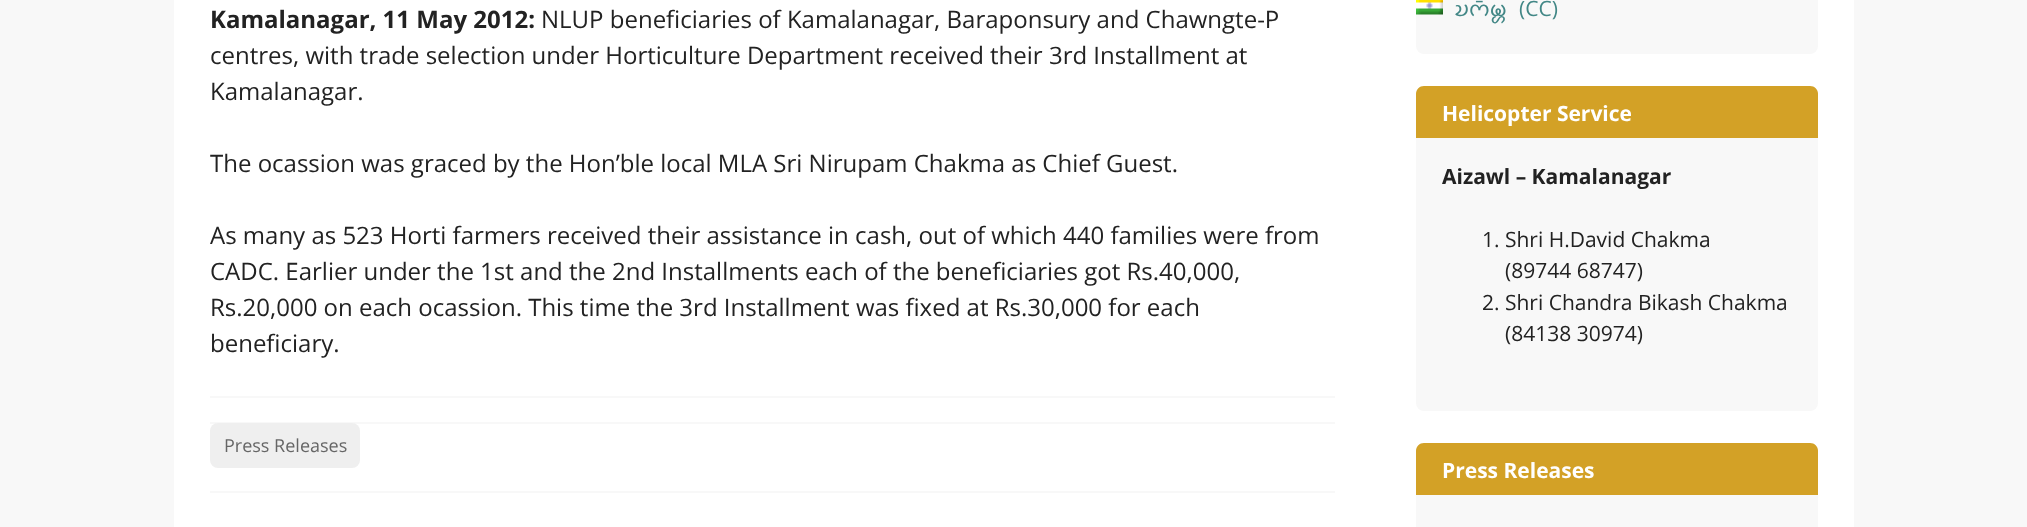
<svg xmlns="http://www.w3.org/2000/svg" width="2027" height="527">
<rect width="100%" height="100%" fill="#f8f8f8"/>
<rect x="174" width="1680" height="527" fill="#fff"/>
<rect x="210" y="396" width="1125" height="2" fill="#f8f8f8"/>
<text x="210" y="28" style="font-family:Open Sans;font-size:24px;font-weight:bold;fill:#222">Kamalanagar, 11 May 2012:</text>
<text x="541" y="28" style="font-family:Open Sans;font-size:24px;fill:#222">NLUP beneficiaries of Kamalanagar, Baraponsury and Chawngte-P</text>
<text x="210" y="64" style="font-family:Open Sans;font-size:24px;fill:#222">centres, with trade selection under Horticulture Department received their 3rd Installment at</text>
<text x="210" y="100" style="font-family:Open Sans;font-size:24px;fill:#222">Kamalanagar.</text>
<text x="210" y="172" style="font-family:Open Sans;font-size:24px;fill:#222">The ocassion was graced by the Hon’ble local MLA Sri Nirupam Chakma as Chief Guest.</text>
<text x="210" y="244" style="font-family:Open Sans;font-size:24px;fill:#222">As many as 523 Horti farmers received their assistance in cash, out of which 440 families were from</text>
<text x="210" y="280" style="font-family:Open Sans;font-size:24px;fill:#222">CADC. Earlier under the 1st and the 2nd Installments each of the beneficiaries got Rs.40,000,</text>
<text x="210" y="316" style="font-family:Open Sans;font-size:24px;fill:#222">Rs.20,000 on each ocassion. This time the 3rd Installment was fixed at Rs.30,000 for each</text>
<text x="210" y="352" style="font-family:Open Sans;font-size:24px;fill:#222">beneficiary.</text>
<rect x="210" y="422" width="1125" height="2" fill="#f8f8f8"/>
<rect x="210" y="491" width="1125" height="2" fill="#f8f8f8"/>
<rect x="210" y="423" width="150" height="45" rx="8" fill="#efefef"/>
<text x="224" y="452" style="font-family:Open Sans;font-size:18px;fill:#666">Press Releases</text>
<rect x="1416" y="-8" width="402" height="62" rx="8" fill="#f8f8f8"/>
<image x="1416" y="0" width="27" height="15" href="media/1.png"/>
<text x="1454" y="16" style="font-family:Noto Sans Chakma;font-size:21px;fill:#428786">𑄌𑄇𑄴𑄟𑄳𑄦</text>
<text x="1519" y="16" style="font-family:Open Sans;font-size:21px;fill:#428786">(CC)</text>
<rect x="1416" y="86" width="402" height="325" rx="8" fill="#f8f8f8"/>
<path d="M1424 86h386c4.5 0 8 3.5 8 8v44h-402v-44c0-4.5 3.5-8 8-8z" fill="#d3a126"/>
<text x="1442" y="121" style="font-family:Open Sans;font-size:21px;font-weight:bold;fill:#fff">Helicopter Service</text>
<text x="1442" y="184" style="font-family:Open Sans;font-size:21px;font-weight:bold;fill:#222">Aizawl – Kamalanagar</text>
<text x="1482" y="247" style="font-family:Open Sans;font-size:21px;fill:#222">1. Shri H.David Chakma</text>
<text x="1505" y="278" style="font-family:Open Sans;font-size:21px;fill:#222">(89744 68747)</text>
<text x="1482" y="310" style="font-family:Open Sans;font-size:21px;fill:#222">2. Shri Chandra Bikash Chakma</text>
<text x="1505" y="341" style="font-family:Open Sans;font-size:21px;fill:#222">(84138 30974)</text>
<rect x="1416" y="443" width="402" height="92" rx="8" fill="#f8f8f8"/>
<path d="M1424 443h386c4.5 0 8 3.5 8 8v44h-402v-44c0-4.5 3.5-8 8-8z" fill="#d3a126"/>
<text x="1442" y="478" style="font-family:Open Sans;font-size:21px;font-weight:bold;fill:#fff">Press Releases</text>
</svg>
